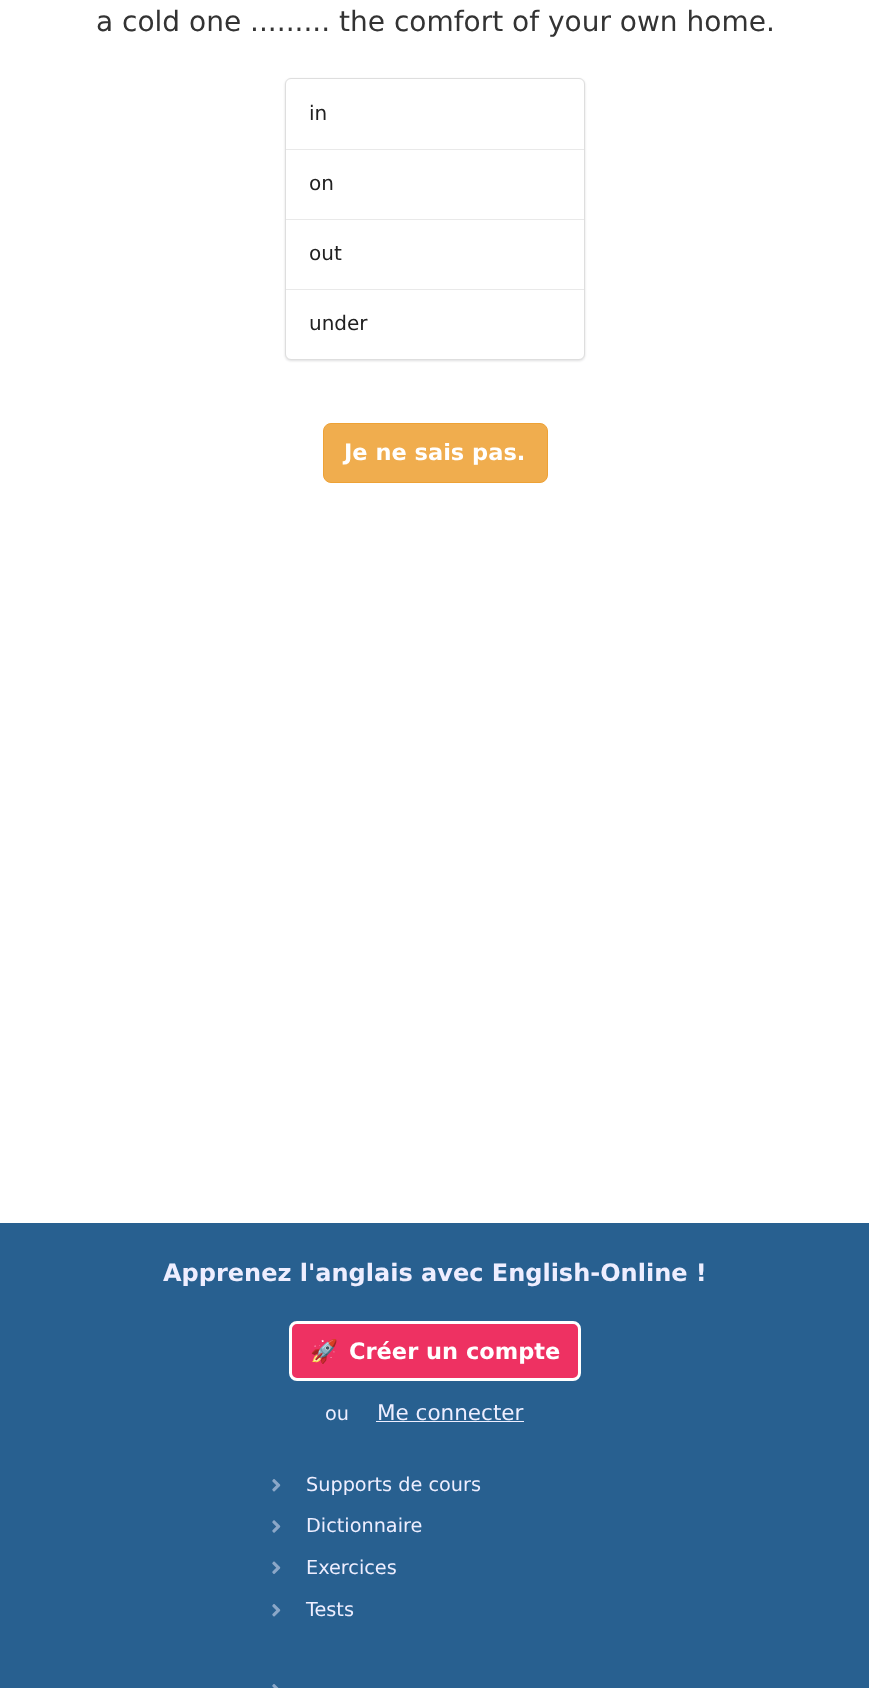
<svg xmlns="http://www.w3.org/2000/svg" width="869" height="1688">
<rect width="100%" height="100%" fill="#fff"/>
<text x="96" y="31" style="font-family:DejaVu Sans;font-size:28px;fill:#333">a cold one ......... the comfort of your own home.</text>
<rect x="285" y="79" width="300" height="282" rx="6" fill="#22242626" filter="blur(1px)"/>
<rect x="285.5" y="78.5" width="299" height="281" rx="5.5" fill="#fff" stroke="#dedede"/>
<text x="309" y="120" style="font-family:DejaVu Sans;font-size:20px;fill:#212121">in</text>
<rect x="286" y="149" width="298" height="1" fill="#e9e9e9"/>
<text x="309" y="190" style="font-family:DejaVu Sans;font-size:20px;fill:#212121">on</text>
<rect x="286" y="219" width="298" height="1" fill="#e9e9e9"/>
<text x="309" y="260" style="font-family:DejaVu Sans;font-size:20px;fill:#212121">out</text>
<rect x="286" y="289" width="298" height="1" fill="#e9e9e9"/>
<text x="309" y="330" style="font-family:DejaVu Sans;font-size:20px;fill:#212121">under</text>
<rect x="323.5" y="423.5" width="224" height="59" rx="7.5" fill="#f0ad4e" stroke="#eea236"/>
<text x="344" y="460" style="font-family:DejaVu Sans;font-size:22.5px;font-weight:bold;fill:#fff">Je ne sais pas.</text>
<rect y="1223" width="869" height="465" fill="#286090"/>
<text x="163" y="1281" style="font-family:DejaVu Sans;font-size:24px;font-weight:bold;fill:#eef">Apprenez l'anglais avec English-Online !</text>
<rect x="290.5" y="1322.5" width="289" height="57" rx="6.5" fill="#ee3162" stroke="#fff" stroke-width="3"/>
<text x="310" y="1359" style="font-family:Noto Color Emoji;font-size:22.5px;font-weight:bold;fill:#fff">🚀</text>
<text x="349" y="1359" style="font-family:DejaVu Sans;font-size:22.5px;font-weight:bold;fill:#fff">Créer un compte</text>
<text x="325" y="1420" style="font-family:DejaVu Sans;font-size:19.25px;fill:#eef">ou</text>
<text x="377" y="1420" style="font-family:DejaVu Sans;font-size:21.5px;fill:#eef">Me connecter</text>
<rect x="376" y="1421" width="148" height="1" fill="#eef"/>
<image x="272" y="1479" width="9" height="13" href="media/1.png"/>
<text x="306" y="1491" style="font-family:DejaVu Sans;font-size:19.25px;fill:#eef">Supports de cours</text>
<image x="272" y="1520" width="9" height="13" href="media/2.png"/>
<text x="306" y="1532" style="font-family:DejaVu Sans;font-size:19.25px;fill:#eef">Dictionnaire</text>
<image x="272" y="1561" width="9" height="13" href="media/3.png"/>
<text x="306" y="1574" style="font-family:DejaVu Sans;font-size:19.25px;fill:#eef">Exercices</text>
<image x="272" y="1604" width="9" height="13" href="media/1.png"/>
<text x="306" y="1616" style="font-family:DejaVu Sans;font-size:19.25px;fill:#eef">Tests</text>
<image x="272" y="1684" width="7" height="4" href="media/4.png"/>
</svg>
